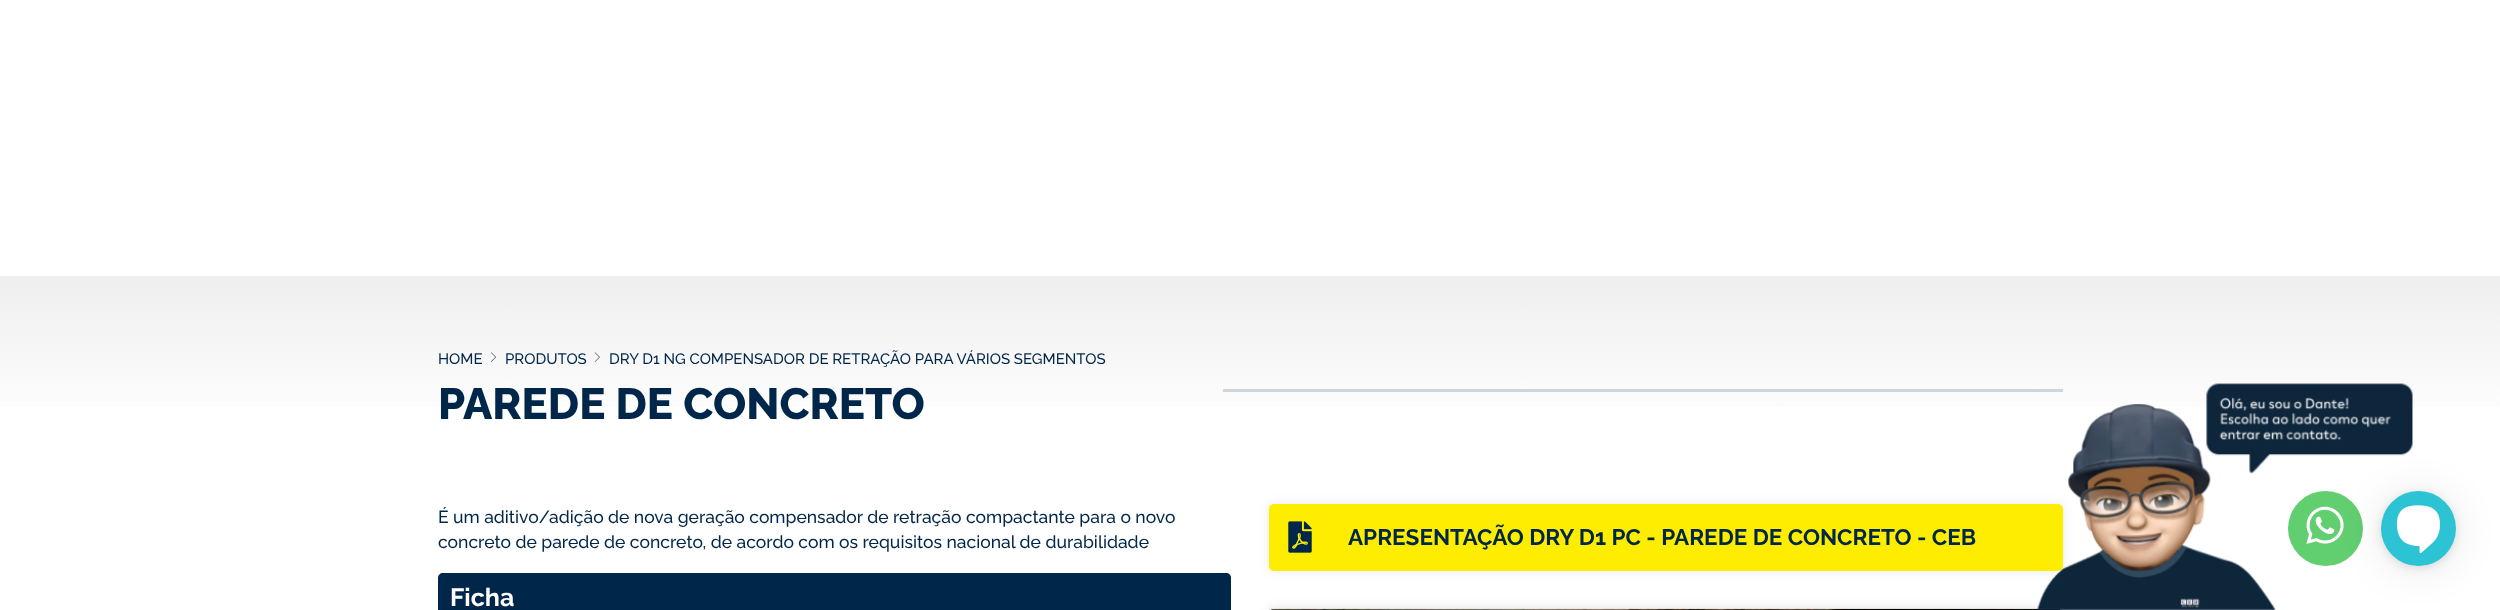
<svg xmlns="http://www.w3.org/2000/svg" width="2500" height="610">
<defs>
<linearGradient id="g1" gradientUnits="userSpaceOnUse" x1="1250" y1="276" x2="1250" y2="429"><stop offset="0" stop-color="#eee"/><stop offset="1" stop-color="#fff"/></linearGradient>
</defs>
<rect width="100%" height="100%" fill="#fff"/>
<rect y="276" width="2500" height="131" fill="url(#g1)"/>
<text x="438" y="364" style="font-family:Raleway;font-size:15px;font-weight:500;fill:#002749">HOME</text>
<image x="491" y="352" width="5" height="10" href="media/1.png"/>
<text x="505" y="364" style="font-family:Raleway;font-size:15px;font-weight:500;fill:#002749">PRODUTOS</text>
<image x="594" y="352" width="6" height="10" href="media/2.png"/>
<text x="609" y="364" style="font-family:Raleway;font-size:15px;font-weight:500;fill:#002749">DRY D1 NG COMPENSADOR DE RETRAÇÃO PARA VÁRIOS SEGMENTOS</text>
<text x="438" y="419" style="font-family:Raleway;font-size:43.75px;font-weight:800;fill:#002749">PAREDE DE CONCRETO</text>
<rect x="1223" y="389" width="840" height="3" fill="#ced5db"/>
<text x="438" y="523" style="font-family:Raleway;font-size:17.5px;font-weight:500;fill:#002749">É um aditivo/adição de nova geração compensador de retração compactante para o novo</text>
<text x="438" y="548" style="font-family:Raleway;font-size:17.5px;font-weight:500;fill:#002749">concreto de parede de concreto, de acordo com os requisitos nacional de durabilidade</text>
<path d="M443 573h783c3 0 5 2 5 5v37h-793v-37c0-3 2-5 5-5z" fill="#002749"/>
<text x="450" y="606" style="font-family:Raleway;font-size:25px;font-weight:bold;fill:#fff">Ficha</text>
<rect x="1269" y="504" width="794" height="67" rx="5" fill="#00000014" filter="blur(6px)"/>
<rect x="1269" y="504" width="794" height="67" rx="5" fill="#ffed00"/>
<image x="1288" y="521" width="24" height="32" href="media/3.png"/>
<text x="1348" y="545" style="font-family:Raleway;font-size:22.5px;font-weight:bold;fill:#002749">APRESENTAÇÃO DRY D1 PC - PAREDE DE CONCRETO - CEB</text>
<rect x="1269" y="609" width="794" height="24" rx="5" fill="#00000021" filter="blur(6px)"/>
<image x="1270" y="608" width="791" height="2" href="media/4.png"/>
<image x="2037" y="383" width="376" height="227" href="media/5.png"/>
<circle cx="2325.5" cy="528.5" r="37.5" fill="#61ce70"/>
<image x="2306" y="506" width="38" height="38" href="media/6.png"/>
<rect x="2381" y="494" width="75" height="75" rx="37.5" fill="#0000001a" filter="blur(20px)"/>
<rect x="2381" y="493" width="75" height="75" rx="37.5" fill="#0000001a" filter="blur(4px)"/>
<circle cx="2418.5" cy="528.5" r="37.5" fill="#2cc3d5"/>
<image x="2396" y="505" width="44" height="49" href="media/7.png"/>
</svg>
